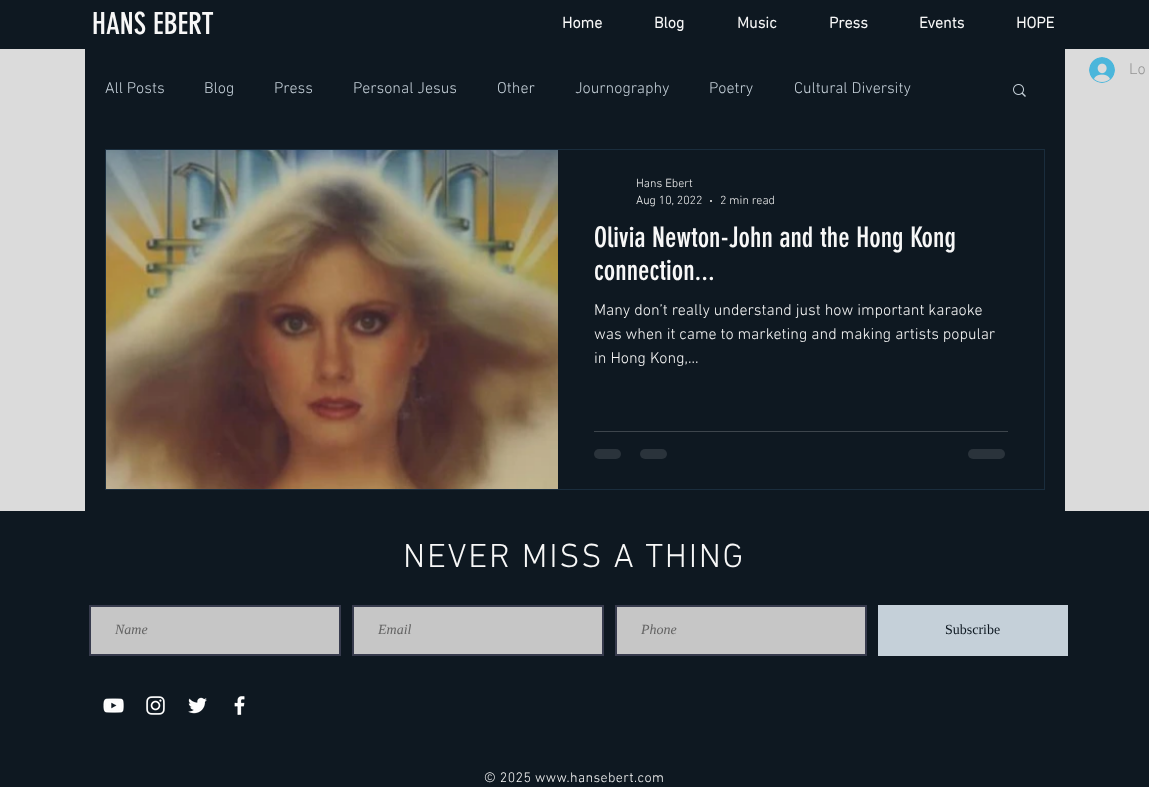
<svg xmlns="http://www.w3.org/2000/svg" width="1149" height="787">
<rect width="100%" height="100%" fill="#dbdbdb"/>
<rect width="1149" height="49" fill="#0e1821"/>
<text x="92" y="34" style="font-family:'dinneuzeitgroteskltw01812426';font-size:30px;fill:#f7f7f7">HANS EBERT</text>
<text x="562" y="28" style="font-family:'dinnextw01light';font-size:16px;font-weight:bold;fill:#f7f7f7">Home</text>
<text x="654" y="28" style="font-family:'dinnextw01light';font-size:16px;font-weight:bold;fill:#f7f7f7">Blog</text>
<text x="737" y="28" style="font-family:'dinnextw01light';font-size:16px;font-weight:bold;fill:#f7f7f7">Music</text>
<text x="829" y="28" style="font-family:'dinnextw01light';font-size:16px;font-weight:bold;fill:#f7f7f7">Press</text>
<text x="919" y="28" style="font-family:'dinnextw01light';font-size:16px;font-weight:bold;fill:#f7f7f7">Events</text>
<text x="1016" y="28" style="font-family:'dinnextw01light';font-size:16px;font-weight:bold;fill:#f7f7f7">HOPE</text>
<image x="1089" y="57" width="26" height="26" href="media/1.png"/>
<text x="1129" y="74" style="font-family:'dinnextw01light';font-size:16px;font-weight:300;fill:#949494">Lo</text>
<rect x="85" y="49" width="980" height="462" fill="#0e1821"/>
<text x="105" y="93" style="font-family:'dinnextw01light';font-size:16px;font-weight:300;fill:#c5d0d9">All Posts</text>
<text x="204" y="93" style="font-family:'dinnextw01light';font-size:16px;font-weight:300;fill:#c5d0d9">Blog</text>
<text x="274" y="93" style="font-family:'dinnextw01light';font-size:16px;font-weight:300;fill:#c5d0d9">Press</text>
<text x="353" y="93" style="font-family:'dinnextw01light';font-size:16px;font-weight:300;fill:#c5d0d9">Personal Jesus</text>
<text x="497" y="93" style="font-family:'dinnextw01light';font-size:16px;font-weight:300;fill:#c5d0d9">Other</text>
<text x="575" y="93" style="font-family:'dinnextw01light';font-size:16px;font-weight:300;fill:#c5d0d9">Journography</text>
<text x="709" y="93" style="font-family:'dinnextw01light';font-size:16px;font-weight:300;fill:#c5d0d9">Poetry</text>
<text x="794" y="93" style="font-family:'dinnextw01light';font-size:16px;font-weight:300;fill:#c5d0d9">Cultural Diversity</text>
<image x="1013" y="84" width="13" height="13" href="media/2.png"/>
<rect x="105.5" y="149.5" width="939" height="340" fill="none" stroke="#1a2d3d"/>
<image x="106" y="150" width="452" height="339" href="media/3.png"/>
<text x="636" y="187" style="font-family:'dinnextw01light';font-size:12px;font-weight:300;fill:#f7f7f7">Hans Ebert</text>
<text x="636" y="204" style="font-family:'dinnextw01light';font-size:12px;font-weight:300;fill:#f7f7f7">Aug 10, 2022</text>
<circle cx="711" cy="201" r="1" fill="#f7f7f7"/>
<text x="720" y="204" style="font-family:'dinnextw01light';font-size:12px;font-weight:300;fill:#f7f7f7">2 min read</text>
<text x="594" y="247" style="font-family:'dinneuzeitgroteskltw01812426';font-size:28px;fill:#f7f7f7">Olivia Newton-John and the Hong Kong</text>
<text x="594" y="280" style="font-family:'dinneuzeitgroteskltw01812426';font-size:28px;fill:#f7f7f7">connection...</text>
<text x="594" y="315" style="font-family:'dinnextw01light';font-size:16px;font-weight:300;fill:#f7f7f7">Many don’t really understand just how important karaoke</text>
<text x="594" y="339" style="font-family:'dinnextw01light';font-size:16px;font-weight:300;fill:#f7f7f7">was when it came to marketing and making artists popular</text>
<text x="594" y="363" style="font-family:'dinnextw01light';font-size:16px;font-weight:300;fill:#f7f7f7">in Hong Kong,...</text>
<rect x="594" y="431" width="414" height="1" fill="#3d454c"/>
<rect x="594" y="449" width="27" height="10" rx="5" fill="#2a333b"/>
<rect x="640" y="449" width="27" height="10" rx="5" fill="#2a333b"/>
<rect x="968" y="449" width="37" height="10" rx="5" fill="#2a333b"/>
<rect y="511" width="1149" height="276" fill="#0e1821"/>
<text x="403" y="567" style="font-family:'dinnextw01light';font-size:34px;font-weight:300;letter-spacing:1.75px;fill:#f7f7f7">NEVER MISS A THING</text>
<rect x="90" y="606" width="250" height="49" fill="#c6c6c6" stroke="#373b4d" stroke-width="2"/>
<text x="115" y="634" style="font-family:Liberation Serif;font-size:14px;font-style:italic;fill:#636363">Name</text>
<rect x="353" y="606" width="250" height="49" fill="#c6c6c6" stroke="#373b4d" stroke-width="2"/>
<text x="378" y="634" style="font-family:Liberation Serif;font-size:14px;font-style:italic;fill:#636363">Email</text>
<rect x="616" y="606" width="250" height="49" fill="#c6c6c6" stroke="#373b4d" stroke-width="2"/>
<text x="641" y="634" style="font-family:Liberation Serif;font-size:14px;font-style:italic;fill:#636363">Phone</text>
<rect x="878" y="605" width="190" height="51" fill="#c5d0d9"/>
<text x="945" y="634" style="font-family:Liberation Serif;font-size:14px;fill:#0e1821">Subscribe</text>
<image x="103" y="698" width="21" height="15" href="media/4.png"/>
<image x="146" y="696" width="19" height="19" href="media/5.png"/>
<image x="188" y="697" width="19" height="17" href="media/6.png"/>
<image x="234" y="696" width="11" height="19" href="media/7.png"/>
<text x="484" y="782" style="font-family:'dinnextw01light';font-size:14px;font-weight:300;letter-spacing:0.4px;fill:#f7f7f7">© 2025 www.hansebert.com</text>
</svg>
